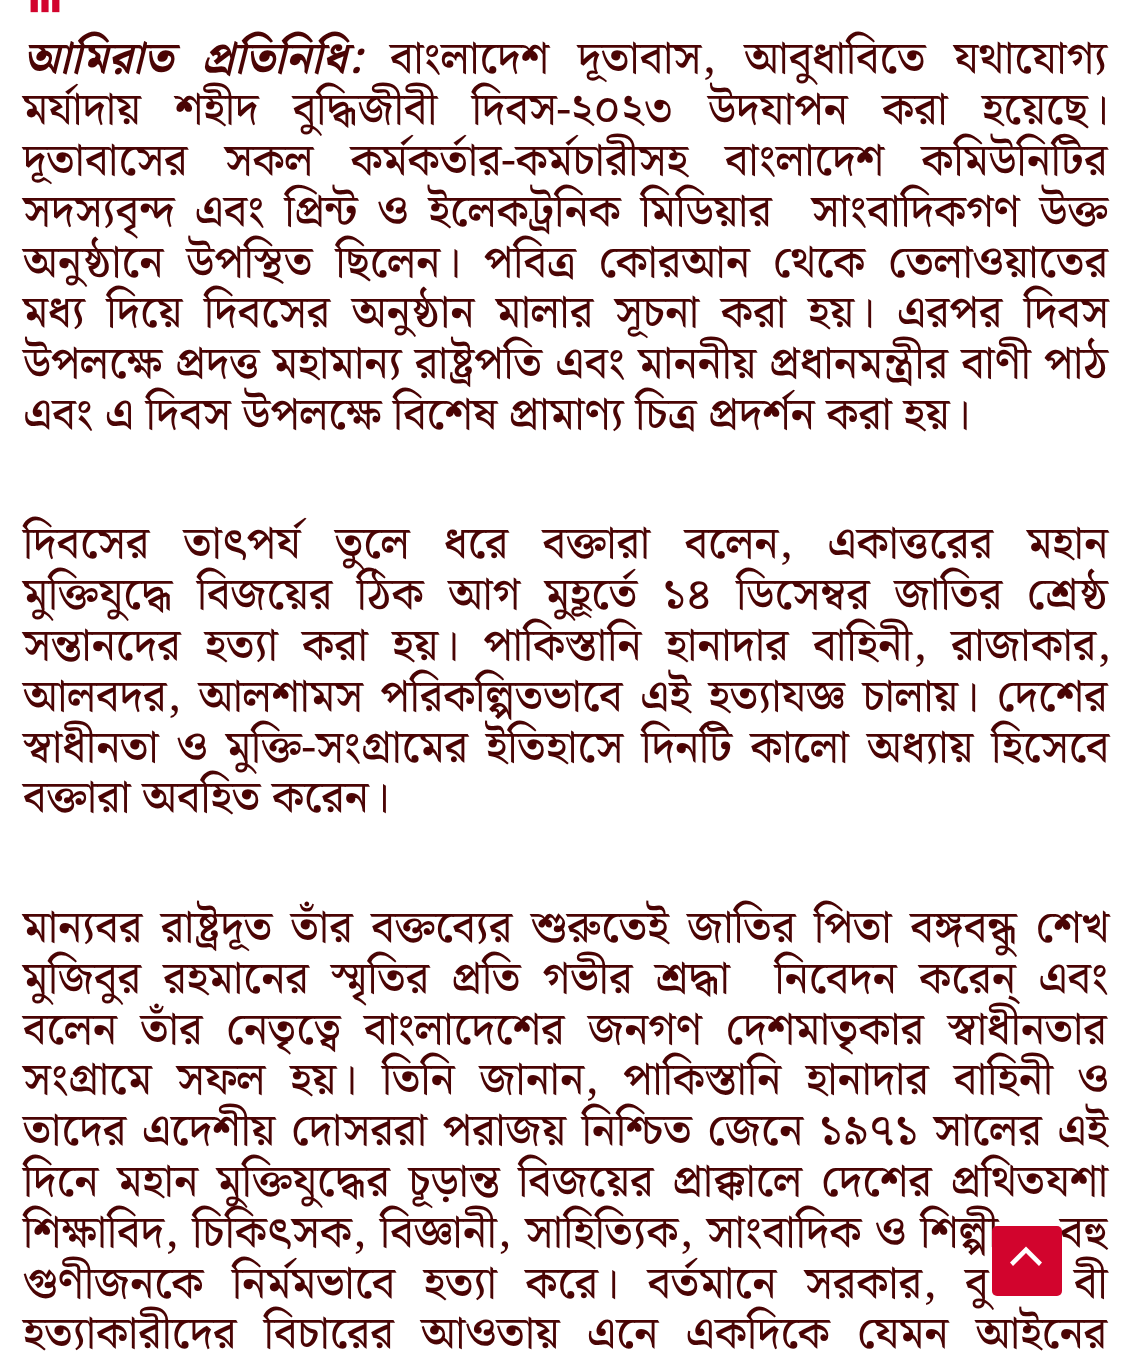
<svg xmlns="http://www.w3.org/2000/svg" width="1129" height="1362">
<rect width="100%" height="100%" fill="#fff"/>
<image x="30" y="0" width="30" height="13" href="media/1.png"/>
<text x="23" y="73" word-spacing="17" style="font-family:Noto Serif Bengali;font-size:45px;font-weight:bold;font-style:italic;fill:#4a0404">আমিরাত প্রতিনিধি:</text>
<text x="390" y="73" word-spacing="17" style="font-family:Noto Serif Bengali;font-size:45px;font-weight:500;fill:#4a0404">বাংলাদেশ দূতাবাস, আবুধাবিতে যথাযোগ্য</text>
<text x="23" y="124" word-spacing="22.75" style="font-family:Noto Serif Bengali;font-size:45px;font-weight:500;fill:#4a0404">মর্যাদায় শহীদ বুদ্ধিজীবী দিবস-২০২৩ উদযাপন করা হয়েছে।</text>
<text x="23" y="175" word-spacing="25.5" style="font-family:Noto Serif Bengali;font-size:45px;font-weight:500;fill:#4a0404">দূতাবাসের সকল কর্মকর্তার-কর্মচারীসহ বাংলাদেশ কমিউনিটির</text>
<text x="23" y="226" word-spacing="8.25" style="font-family:Noto Serif Bengali;font-size:45px;font-weight:500;fill:#4a0404" xml:space="preserve">সদস্যবৃন্দ এবং প্রিন্ট ও ইলেকট্রনিক মিডিয়ার  সাংবাদিকগণ উক্ত</text>
<text x="23" y="277" word-spacing="11.25" style="font-family:Noto Serif Bengali;font-size:45px;font-weight:500;fill:#4a0404">অনুষ্ঠানে উপস্থিত ছিলেন। পবিত্র কোরআন থেকে তেলাওয়াতের</text>
<text x="23" y="327" word-spacing="10" style="font-family:Noto Serif Bengali;font-size:45px;font-weight:500;fill:#4a0404">মধ্য দিয়ে দিবসের অনুষ্ঠান মালার সূচনা করা হয়। এরপর দিবস</text>
<text x="23" y="378" word-spacing="1.5" style="font-family:Noto Serif Bengali;font-size:45px;font-weight:500;fill:#4a0404">উপলক্ষে প্রদত্ত মহামান্য রাষ্ট্রপতি এবং মাননীয় প্রধানমন্ত্রীর বাণী পাঠ</text>
<text x="23" y="429" style="font-family:Noto Serif Bengali;font-size:45px;font-weight:500;fill:#4a0404">এবং এ দিবস উপলক্ষে বিশেষ প্রামাণ্য চিত্র প্রদর্শন করা হয়।</text>
<text x="23" y="558" word-spacing="22.75" style="font-family:Noto Serif Bengali;font-size:45px;font-weight:500;fill:#4a0404">দিবসের তাৎপর্য তুলে ধরে বক্তারা বলেন, একাত্তরের মহান</text>
<text x="23" y="609" word-spacing="13" style="font-family:Noto Serif Bengali;font-size:45px;font-weight:500;fill:#4a0404">মুক্তিযুদ্ধে বিজয়ের ঠিক আগ মুহূর্তে ১৪ ডিসেম্বর জাতির শ্রেষ্ঠ</text>
<text x="23" y="660" word-spacing="12.75" style="font-family:Noto Serif Bengali;font-size:45px;font-weight:500;fill:#4a0404">সন্তানদের হত্যা করা হয়। পাকিস্তানি হানাদার বাহিনী, রাজাকার,</text>
<text x="23" y="711" word-spacing="6" style="font-family:Noto Serif Bengali;font-size:45px;font-weight:500;fill:#4a0404">আলবদর, আলশামস পরিকল্পিতভাবে এই হত্যাযজ্ঞ চালায়। দেশের</text>
<text x="23" y="762" word-spacing="6.5" style="font-family:Noto Serif Bengali;font-size:45px;font-weight:500;fill:#4a0404">স্বাধীনতা ও মুক্তি-সংগ্রামের ইতিহাসে দিনটি কালো অধ্যায় হিসেবে</text>
<text x="23" y="812" style="font-family:Noto Serif Bengali;font-size:45px;font-weight:500;fill:#4a0404">বক্তারা অবহিত করেন।</text>
<text x="23" y="942" word-spacing="7" style="font-family:Noto Serif Bengali;font-size:45px;font-weight:500;fill:#4a0404">মান্যবর রাষ্ট্রদূত তাঁর বক্তব্যের শুরুতেই জাতির পিতা বঙ্গবন্ধু শেখ</text>
<text x="23" y="993" word-spacing="10.75" style="font-family:Noto Serif Bengali;font-size:45px;font-weight:500;fill:#4a0404" xml:space="preserve">মুজিবুর রহমানের স্মৃতির প্রতি গভীর শ্রদ্ধা  নিবেদন করেন্ এবং</text>
<text x="23" y="1044" word-spacing="12" style="font-family:Noto Serif Bengali;font-size:45px;font-weight:500;fill:#4a0404">বলেন তাঁর নেতৃত্বে বাংলাদেশের জনগণ দেশমাতৃকার স্বাধীনতার</text>
<text x="23" y="1094" word-spacing="13.25" style="font-family:Noto Serif Bengali;font-size:45px;font-weight:500;fill:#4a0404">সংগ্রামে সফল হয়। তিনি জানান, পাকিস্তানি হানাদার বাহিনী ও</text>
<text x="23" y="1145" word-spacing="4" style="font-family:Noto Serif Bengali;font-size:45px;font-weight:500;fill:#4a0404">তাদের এদেশীয় দোসররা পরাজয় নিশ্চিত জেনে ১৯৭১ সালের এই</text>
<text x="23" y="1196" word-spacing="7.25" style="font-family:Noto Serif Bengali;font-size:45px;font-weight:500;fill:#4a0404">দিনে মহান মুক্তিযুদ্ধের চূড়ান্ত বিজয়ের প্রাক্কালে দেশের প্রথিতযশা</text>
<text x="23" y="1247" word-spacing="2.25" style="font-family:Noto Serif Bengali;font-size:45px;font-weight:500;fill:#4a0404">শিক্ষাবিদ, চিকিৎসক, বিজ্ঞানী, সাহিত্যিক, সাংবাদিক ও শিল্পী</text>
<text x="1060" y="1247" word-spacing="2.25" style="font-family:Noto Serif Bengali;font-size:45px;font-weight:500;fill:#4a0404">বহু</text>
<text x="23" y="1298" word-spacing="17" style="font-family:Noto Serif Bengali;font-size:45px;font-weight:500;fill:#4a0404">গুণীজনকে নির্মমভাবে হত্যা করে। বর্তমানে সরকার, বু</text>
<text x="1074" y="1298" word-spacing="17" style="font-family:Noto Serif Bengali;font-size:45px;font-weight:500;fill:#4a0404">বী</text>
<text x="23" y="1348" word-spacing="15.75" style="font-family:Noto Serif Bengali;font-size:45px;font-weight:500;fill:#4a0404">হত্যাকারীদের বিচারের আওতায় এনে একদিকে যেমন আইনের</text>
<rect x="992" y="1226" width="70" height="70" rx="5" fill="#d2042d"/>
<path d="M1042 1262.5l-16-16l-16 16l3 3.5l13-13l13 13z" fill="#fff"/>
</svg>
